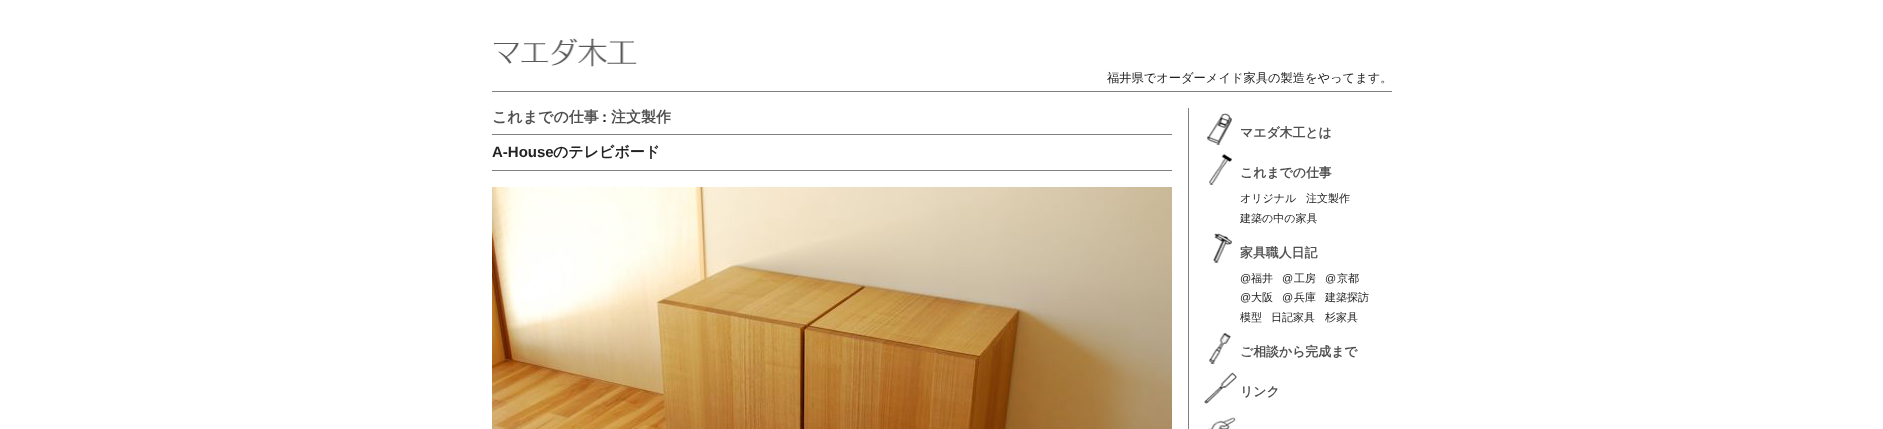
<svg xmlns="http://www.w3.org/2000/svg" width="1883" height="429">
<rect width="100%" height="100%" fill="#fff"/>
<image x="494" y="38" width="143" height="29" href="media/1.png"/>
<rect x="492" y="91" width="900" height="1" fill="#808080"/>
<text x="1107" y="82" style="font-family:WenQuanYi Zen Hei;font-size:12.25px;font-weight:500;fill:#222">福井県でオーダーメイド家具の製造をやってます。</text>
<rect x="1188" y="108" width="1" height="321" fill="#808080"/>
<rect x="492" y="134" width="680" height="1" fill="#808080"/>
<text x="492" y="122" style="font-family:WenQuanYi Zen Hei;font-size:15px;font-weight:bold;fill:#505050">これまでの仕事</text>
<text x="602" y="122" style="font-family:Liberation Sans;font-size:15px;font-weight:bold;fill:#222">:</text>
<text x="611" y="122" style="font-family:WenQuanYi Zen Hei;font-size:15px;font-weight:bold;fill:#505050">注文製作</text>
<rect x="492" y="170" width="680" height="1" fill="#808080"/>
<text x="492" y="157" style="font-family:Liberation Sans;font-size:15px;font-weight:bold;fill:#222">A-House</text>
<text x="553" y="157" style="font-family:WenQuanYi Zen Hei;font-size:15px;font-weight:bold;fill:#222">のテレビボード</text>
<image x="492" y="187" width="680" height="242" href="media/2.png"/>
<image x="1207" y="113" width="25" height="32" href="media/3.png"/>
<text x="1240" y="137" style="font-family:WenQuanYi Zen Hei;font-size:12.9px;font-weight:bold;fill:#505050">マエダ木工とは</text>
<image x="1209" y="154" width="23" height="31" href="media/4.png"/>
<text x="1240" y="177" style="font-family:WenQuanYi Zen Hei;font-size:12.9px;font-weight:bold;fill:#505050">これまでの仕事</text>
<text x="1240" y="202" style="font-family:WenQuanYi Zen Hei;font-size:11px;font-weight:500;fill:#222">オリジナル</text>
<text x="1306" y="202" style="font-family:WenQuanYi Zen Hei;font-size:11px;font-weight:500;fill:#222">注文製作</text>
<text x="1240" y="222" style="font-family:WenQuanYi Zen Hei;font-size:11px;font-weight:500;fill:#222">建築の中の家具</text>
<image x="1213" y="233" width="19" height="30" href="media/5.png"/>
<text x="1240" y="257" style="font-family:WenQuanYi Zen Hei;font-size:12.9px;font-weight:bold;fill:#505050">家具職人日記</text>
<text x="1240" y="282" style="font-family:Liberation Sans;font-size:11px;fill:#222">@</text>
<text x="1251" y="282" style="font-family:WenQuanYi Zen Hei;font-size:11px;font-weight:500;fill:#222">福井</text>
<text x="1282" y="282" style="font-family:Liberation Sans;font-size:11px;fill:#222">@</text>
<text x="1294" y="282" style="font-family:WenQuanYi Zen Hei;font-size:11px;font-weight:500;fill:#222">工房</text>
<text x="1325" y="282" style="font-family:Liberation Sans;font-size:11px;fill:#222">@</text>
<text x="1337" y="282" style="font-family:WenQuanYi Zen Hei;font-size:11px;font-weight:500;fill:#222">京都</text>
<text x="1240" y="301" style="font-family:Liberation Sans;font-size:11px;fill:#222">@</text>
<text x="1251" y="301" style="font-family:WenQuanYi Zen Hei;font-size:11px;font-weight:500;fill:#222">大阪</text>
<text x="1282" y="301" style="font-family:Liberation Sans;font-size:11px;fill:#222">@</text>
<text x="1294" y="301" style="font-family:WenQuanYi Zen Hei;font-size:11px;font-weight:500;fill:#222">兵庫</text>
<text x="1325" y="301" style="font-family:WenQuanYi Zen Hei;font-size:11px;font-weight:500;fill:#222">建築探訪</text>
<text x="1240" y="321" style="font-family:WenQuanYi Zen Hei;font-size:11px;font-weight:500;fill:#222">模型</text>
<text x="1271" y="321" style="font-family:WenQuanYi Zen Hei;font-size:11px;font-weight:500;fill:#222">日記家具</text>
<text x="1325" y="321" style="font-family:WenQuanYi Zen Hei;font-size:11px;font-weight:500;fill:#222">杉家具</text>
<image x="1209" y="332" width="22" height="32" href="media/6.png"/>
<text x="1240" y="356" style="font-family:WenQuanYi Zen Hei;font-size:12.9px;font-weight:bold;fill:#505050">ご相談から完成まで</text>
<image x="1204" y="372" width="33" height="32" href="media/7.png"/>
<text x="1240" y="396" style="font-family:WenQuanYi Zen Hei;font-size:12.9px;font-weight:bold;fill:#505050">リンク</text>
<image x="1208" y="417" width="28" height="12" href="media/8.png"/>
</svg>
